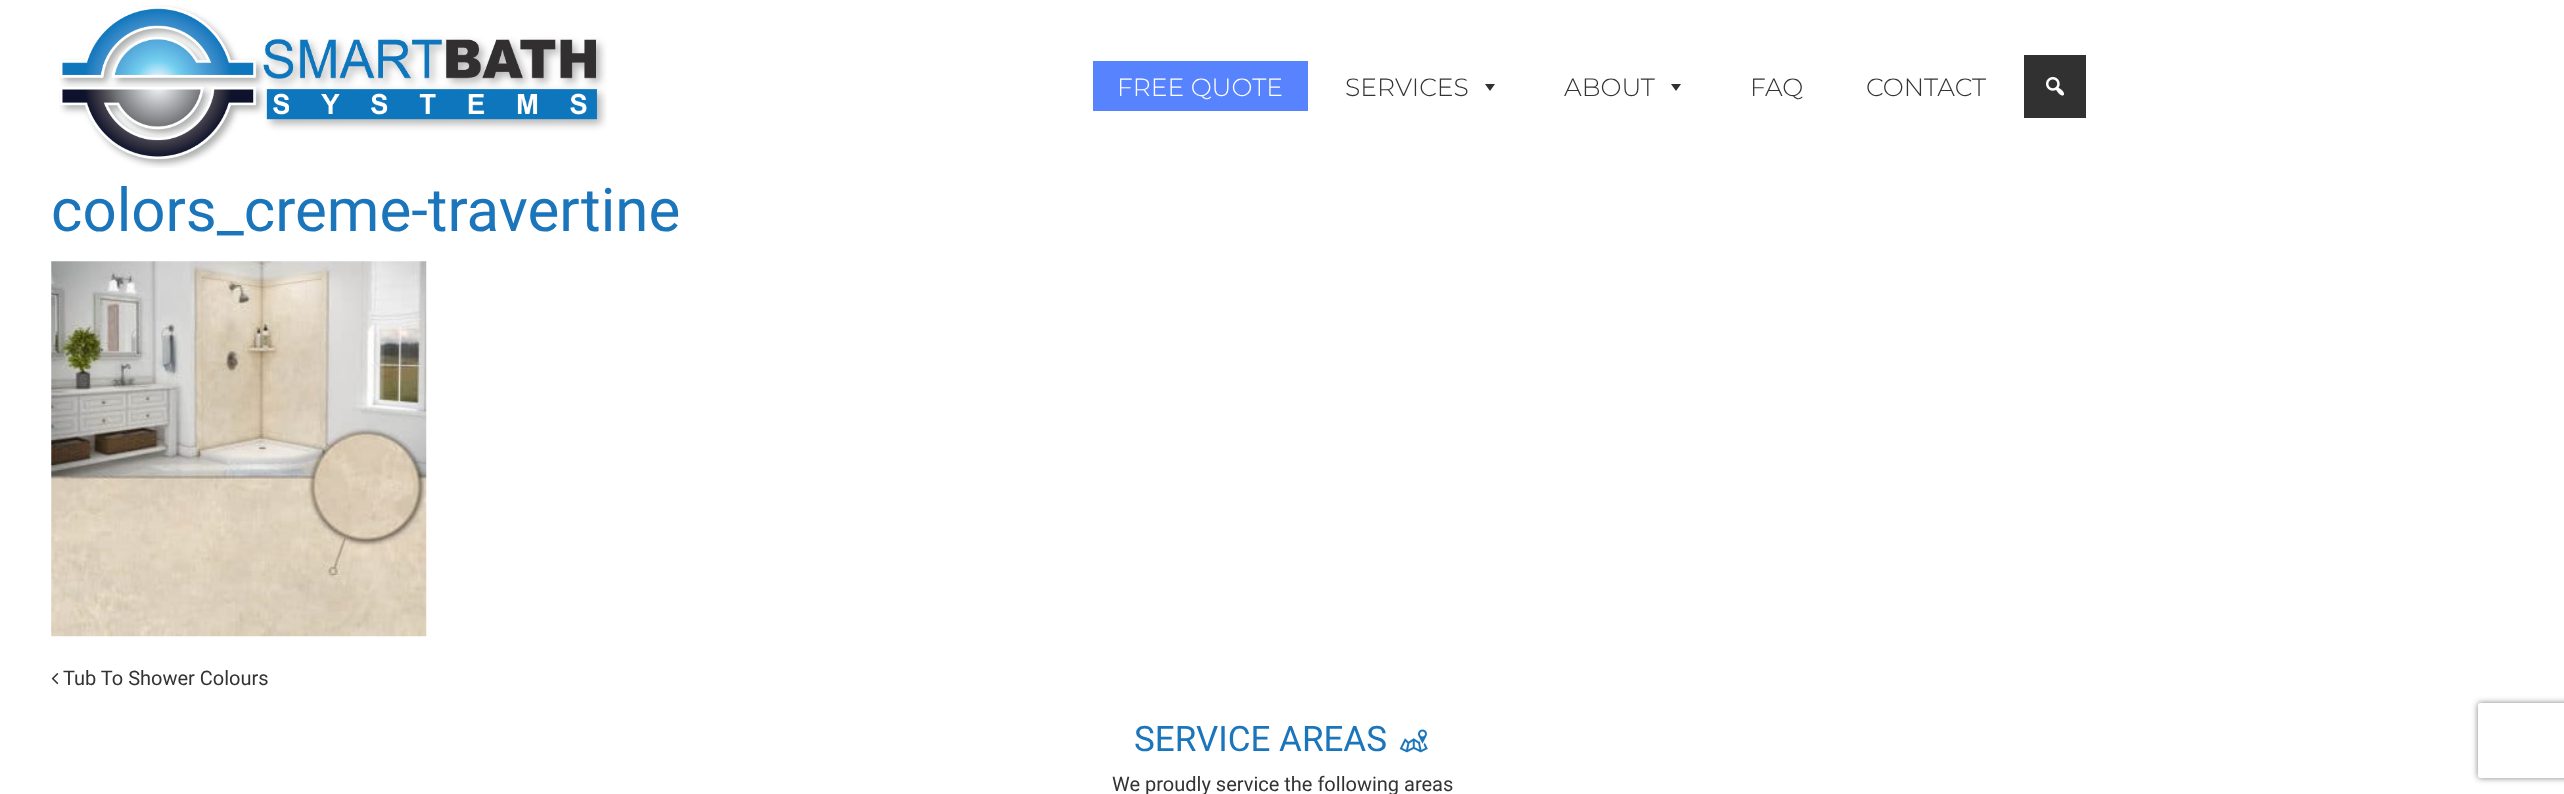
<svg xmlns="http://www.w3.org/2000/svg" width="2564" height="794">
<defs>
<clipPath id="clip1"><path d="M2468 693h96v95h-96zm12.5 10h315c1.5 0 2.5 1 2.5 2.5v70c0 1.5-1 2.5-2.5 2.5h-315c-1.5 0-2.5-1-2.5-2.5v-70c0-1.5 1-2.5 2.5-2.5z" clip-rule="evenodd"/></clipPath>
</defs>
<rect width="100%" height="100%" fill="#fff"/>
<image x="59" y="5" width="548" height="163" href="media/1.png"/>
<rect x="1093" y="61" width="215" height="50" fill="#5784fe"/>
<text x="1117" y="96" style="font-family:Montserrat;font-size:25px;font-weight:300;fill:#fff">FREE QUOTE</text>
<text x="1345" y="96" style="font-family:Montserrat;font-size:25px;font-weight:300;fill:#333">SERVICES</text>
<path d="M1495 84l-5 7l-5-7z" fill="#323132"/>
<text x="1564" y="96" style="font-family:Montserrat;font-size:25px;font-weight:300;fill:#333">ABOUT</text>
<path d="M1681 84l-5 7l-5-7z" fill="#323132"/>
<text x="1750" y="96" style="font-family:Montserrat;font-size:25px;font-weight:300;fill:#333">FAQ</text>
<text x="1866" y="96" style="font-family:Montserrat;font-size:25px;font-weight:300;fill:#333">CONTACT</text>
<rect x="2024" y="55" width="62" height="63" fill="#323132"/>
<image x="2046" y="77" width="18" height="19" href="media/2.png"/>
<text x="51" y="231" style="font-family:Roboto;font-size:60px;fill:#1b75bb">colors_creme-travertine</text>
<image x="51" y="261" width="376" height="376" href="media/3.png"/>
<image x="51" y="673" width="8" height="12" href="media/4.png"/>
<text x="63" y="685" style="font-family:Roboto;font-size:20px;fill:#333">Tub To Shower Colours</text>
<text x="1134" y="751" style="font-family:Roboto;font-size:35px;fill:#1b75bb">SERVICE AREAS</text>
<image x="1399" y="729" width="29" height="24" href="media/5.png"/>
<text x="1112" y="791" style="font-family:Roboto;font-size:20px;fill:#333">We proudly service the following areas</text>
<g clip-path="url(#clip1)">
<rect x="2478" y="703" width="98" height="75" rx="2.5" fill="#808080" filter="blur(3px)"/>
</g>
</svg>
